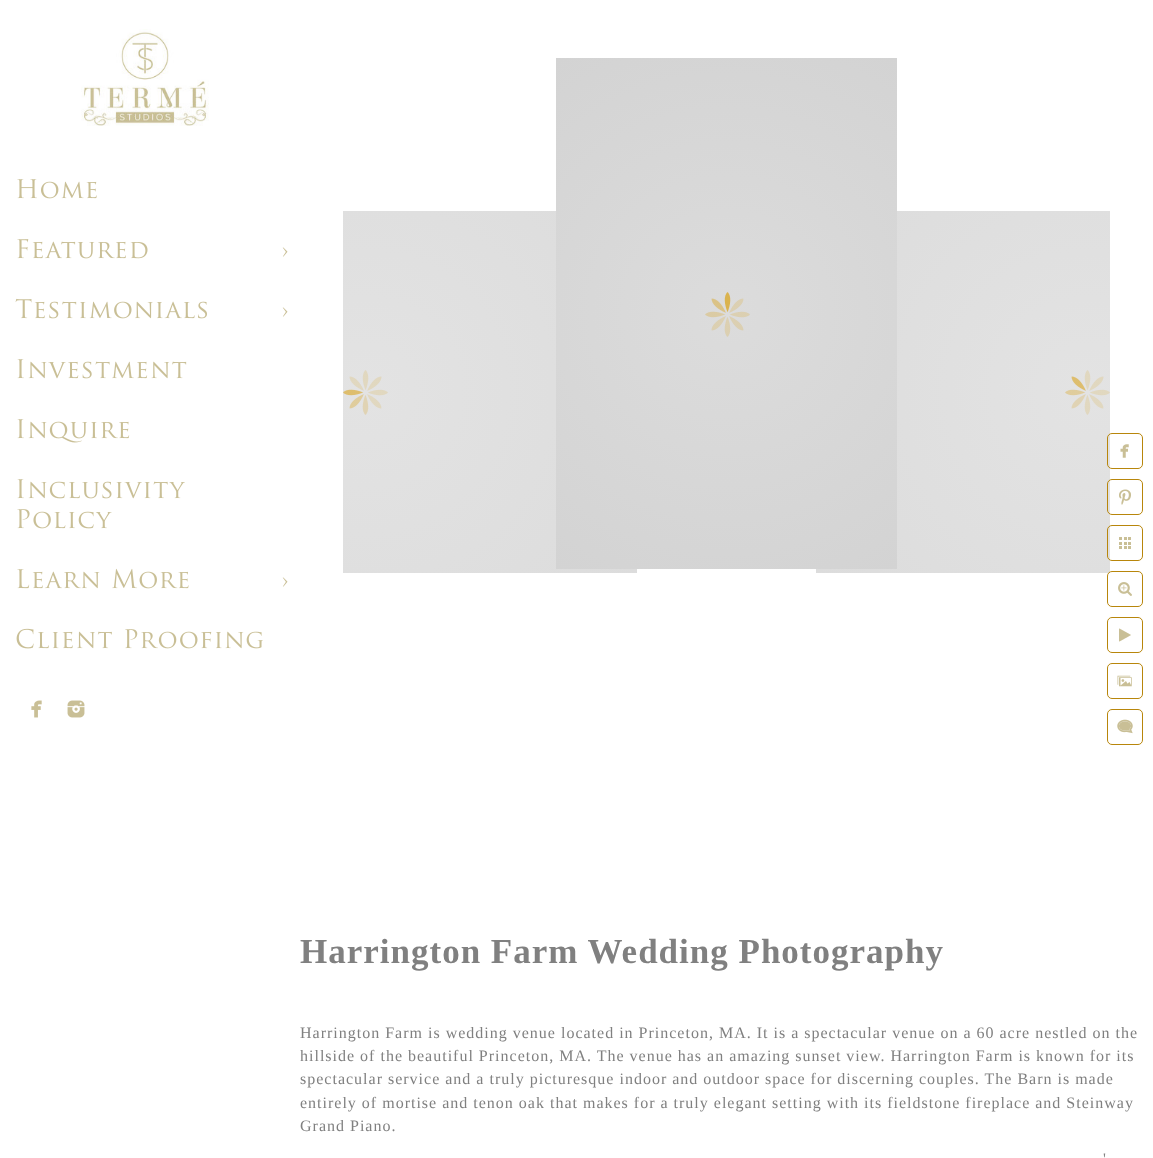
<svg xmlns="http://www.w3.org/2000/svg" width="1153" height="1158">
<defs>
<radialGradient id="g1" gradientUnits="userSpaceOnUse" cx="366" cy="392" r="326"><stop offset="0" stop-color="#e3e3e3"/><stop offset="1" stop-color="#dcdcdc"/></radialGradient>
<radialGradient id="g2" gradientUnits="userSpaceOnUse" cx="1088" cy="392" r="326"><stop offset="0" stop-color="#e3e3e3"/><stop offset="1" stop-color="#dcdcdc"/></radialGradient>
<radialGradient id="g3" gradientUnits="userSpaceOnUse" cx="727" cy="314" r="307"><stop offset="0" stop-color="#dcdcdc"/><stop offset="1" stop-color="#d3d3d3"/></radialGradient>
</defs>
<rect width="100%" height="100%" fill="#fff"/>
<image x="81" y="29" width="128" height="97" href="media/1.png"/>
<image x="17" y="179" width="80" height="20" href="media/2.png"/>
<image x="17" y="239" width="131" height="20" href="media/3.png"/>
<image x="282" y="247" width="6" height="10" href="media/4.png"/>
<image x="15" y="298" width="192" height="21" href="media/5.png"/>
<image x="282" y="307" width="6" height="10" href="media/4.png"/>
<image x="17" y="359" width="170" height="20" href="media/6.png"/>
<image x="17" y="419" width="113" height="24" href="media/7.png"/>
<image x="17" y="479" width="168" height="20" href="media/8.png"/>
<image x="17" y="509" width="95" height="20" href="media/9.png"/>
<image x="17" y="568" width="172" height="21" href="media/10.png"/>
<image x="282" y="577" width="6" height="10" href="media/4.png"/>
<image x="16" y="628" width="247" height="21" href="media/11.png"/>
<image x="31" y="700" width="11" height="18" href="media/12.png"/>
<image x="67" y="700" width="18" height="18" href="media/13.png"/>
<rect x="343" y="211" width="294" height="362" fill="url(#g1)"/>
<image x="343" y="370" width="45" height="45" href="media/14.png"/>
<rect x="816" y="211" width="294" height="362" fill="url(#g2)"/>
<rect x="556" y="58" width="341" height="511" fill="url(#g3)"/>
<image x="705" y="292" width="45" height="45" href="media/15.png"/>
<image x="1065" y="370" width="45" height="45" href="media/16.png"/>
<rect x="1107.5" y="433.5" width="35" height="35" rx="4.5" fill="none" stroke="#b8860b"/>
<image x="1120" y="444" width="9" height="14" href="media/17.png"/>
<rect x="1107.5" y="479.5" width="35" height="35" rx="4.5" fill="none" stroke="#b8860b"/>
<image x="1119" y="489" width="12" height="16" href="media/18.png"/>
<rect x="1107.5" y="525.5" width="35" height="35" rx="4.5" fill="none" stroke="#b8860b"/>
<image x="1119" y="537" width="12" height="12" href="media/19.png"/>
<rect x="1107.5" y="571.5" width="35" height="35" rx="4.5" fill="none" stroke="#b8860b"/>
<image x="1118" y="582" width="14" height="14" href="media/20.png"/>
<rect x="1107.5" y="617.5" width="35" height="35" rx="4.5" fill="none" stroke="#b8860b"/>
<image x="1119" y="628" width="12" height="14" href="media/21.png"/>
<rect x="1107.5" y="663.5" width="35" height="35" rx="4.5" fill="none" stroke="#b8860b"/>
<image x="1117" y="675" width="15" height="12" href="media/22.png"/>
<rect x="1107.5" y="709.5" width="35" height="35" rx="4.5" fill="none" stroke="#b8860b"/>
<image x="1117" y="719" width="16" height="15" href="media/23.png"/>
<text x="300" y="963" style="font-family:Liberation Serif;font-size:35px;font-weight:bold;letter-spacing:1px;fill:#808080">Harrington Farm Wedding Photography</text>
<text x="300" y="1038" style="font-family:Liberation Serif;font-size:16px;letter-spacing:1px;fill:#808080">Harrington Farm is wedding venue located in Princeton, MA. It is a spectacular venue on a 60 acre nestled on the</text>
<text x="300" y="1061" style="font-family:Liberation Serif;font-size:16px;letter-spacing:1px;fill:#808080">hillside of the beautiful Princeton, MA. The venue has an amazing sunset view. Harrington Farm is known for its</text>
<text x="300" y="1084" style="font-family:Liberation Serif;font-size:16px;letter-spacing:1px;fill:#808080">spectacular service and a truly picturesque indoor and outdoor space for discerning couples. The Barn is made</text>
<text x="300" y="1108" style="font-family:Liberation Serif;font-size:16px;letter-spacing:1px;fill:#808080">entirely of mortise and tenon oak that makes for a truly elegant setting with its fieldstone fireplace and Steinway</text>
<text x="300" y="1131" style="font-family:Liberation Serif;font-size:16px;letter-spacing:1px;fill:#808080">Grand Piano.</text>
<text x="1103" y="1164" style="font-family:Liberation Serif;font-size:16px;letter-spacing:1px;fill:#808080">'</text>
</svg>
